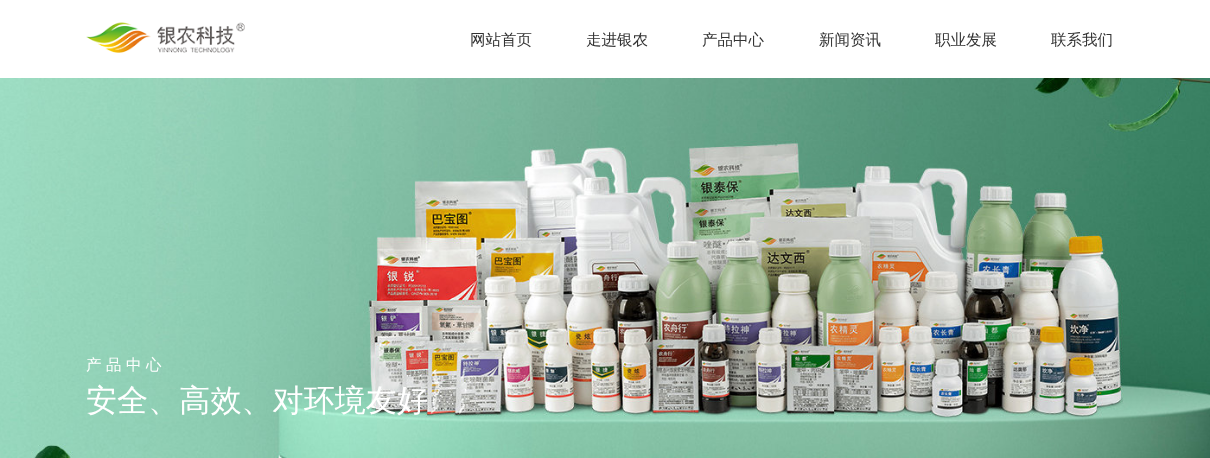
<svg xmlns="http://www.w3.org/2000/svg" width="1210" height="458">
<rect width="100%" height="100%" fill="#fff"/>
<image x="86" y="22" width="159" height="31" href="media/1.png"/>
<text x="470" y="45" style="font-family:WenQuanYi Zen Hei;font-size:15.5px;font-weight:500;fill:#333">网站首页</text>
<text x="586" y="45" style="font-family:WenQuanYi Zen Hei;font-size:15.5px;font-weight:500;fill:#333">走进银农</text>
<text x="702" y="45" style="font-family:WenQuanYi Zen Hei;font-size:15.5px;font-weight:500;fill:#333">产品中心</text>
<text x="819" y="45" style="font-family:WenQuanYi Zen Hei;font-size:15.5px;font-weight:500;fill:#333">新闻资讯</text>
<text x="935" y="45" style="font-family:WenQuanYi Zen Hei;font-size:15.5px;font-weight:500;fill:#333">职业发展</text>
<text x="1051" y="45" style="font-family:WenQuanYi Zen Hei;font-size:15.5px;font-weight:500;fill:#333">联系我们</text>
<image x="0" y="78" width="1210" height="380" href="media/2.png"/>
<text x="86" y="370" style="font-family:WenQuanYi Zen Hei;font-size:15.5px;font-weight:500;letter-spacing:4.5px;fill:#fff">产品中心</text>
<text x="86" y="411" style="font-family:WenQuanYi Zen Hei;font-size:31.1px;font-weight:500;fill:#fff">安全、高效、对环境友好</text>
</svg>
